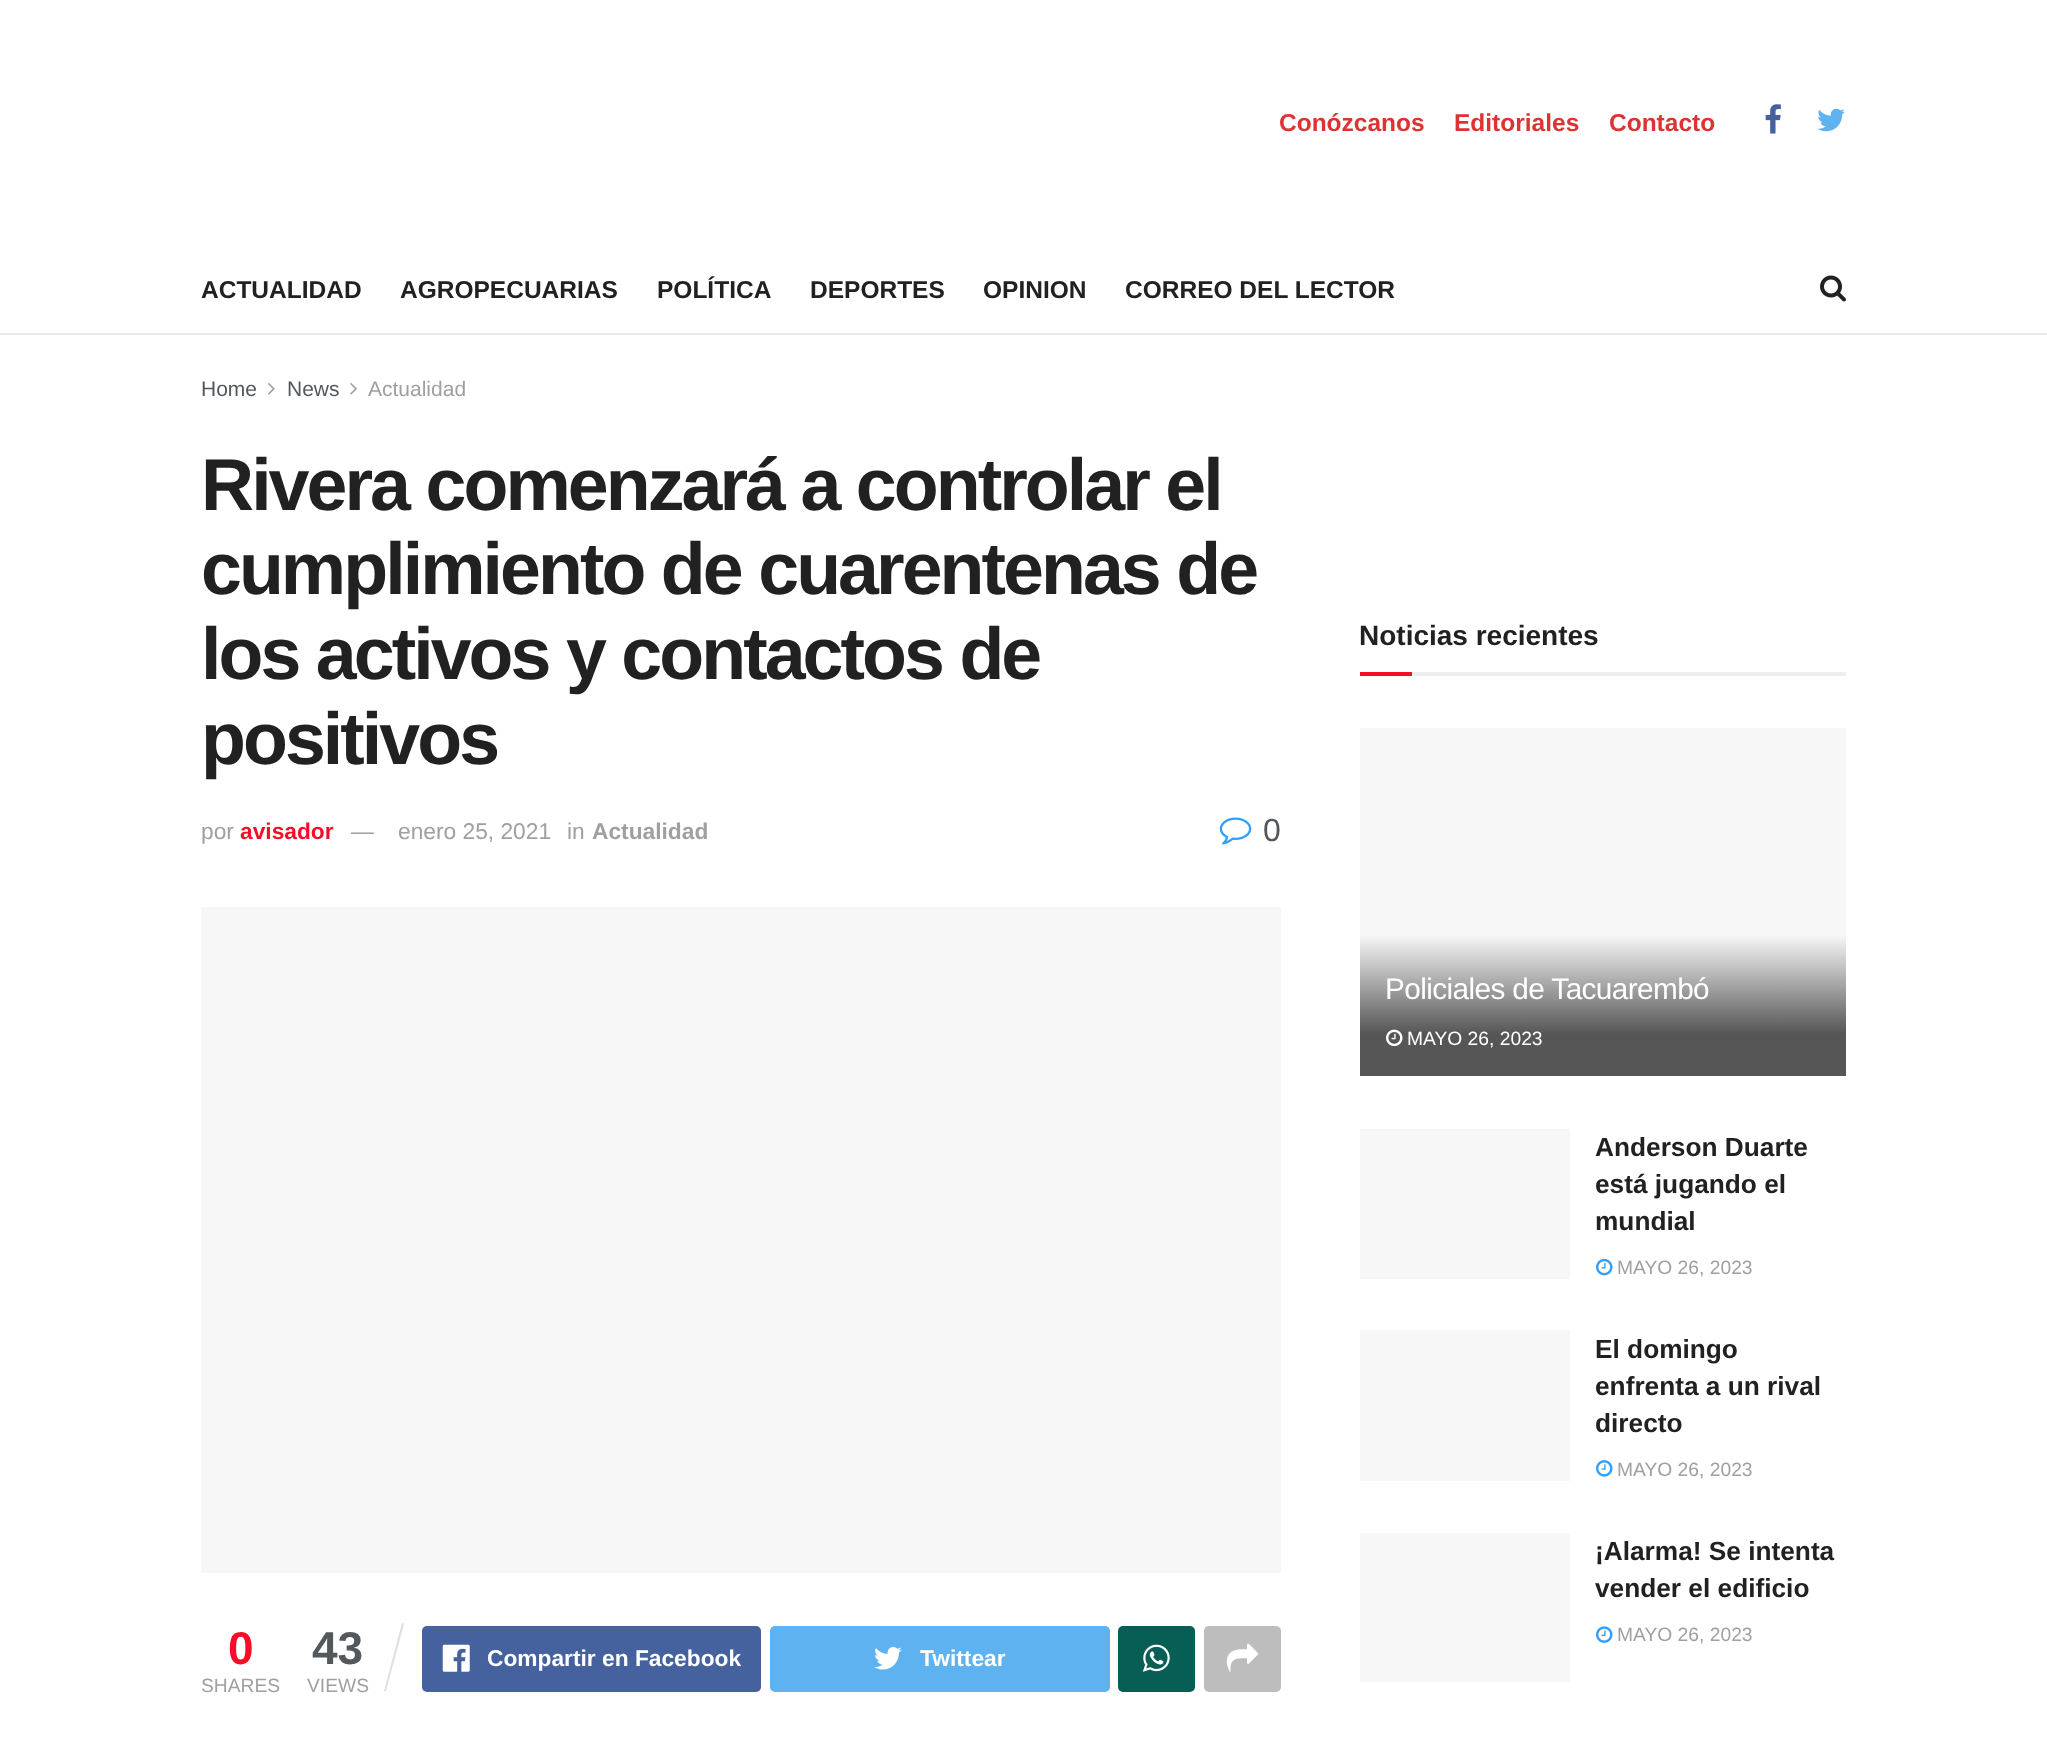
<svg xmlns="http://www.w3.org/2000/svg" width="2047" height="1760">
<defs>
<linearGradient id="g1" gradientUnits="userSpaceOnUse" x1="1603" y1="935" x2="1603" y2="1076"><stop offset="0" stop-color="#f7f7f7"/><stop offset="0.7" stop-color="#565656"/></linearGradient>
</defs>
<rect width="100%" height="100%" fill="#fff"/>
<text x="1279" y="131" style="font-family:Liberation Sans;font-size:24.5px;font-weight:bold;fill:#d33">Conózcanos</text>
<text x="1454" y="131" style="font-family:Liberation Sans;font-size:24.5px;font-weight:bold;fill:#d33">Editoriales</text>
<text x="1609" y="131" style="font-family:Liberation Sans;font-size:24.5px;font-weight:bold;fill:#d33">Contacto</text>
<image x="1765" y="104" width="16" height="30" href="media/1.png"/>
<image x="1817" y="108" width="28" height="24" href="media/2.png"/>
<rect y="333" width="2047" height="2" fill="#e8e8e8"/>
<text x="201" y="298" style="font-family:Liberation Sans;font-size:24.5px;font-weight:bold;fill:#212121">ACTUALIDAD</text>
<text x="400" y="298" style="font-family:Liberation Sans;font-size:24.5px;font-weight:bold;fill:#212121">AGROPECUARIAS</text>
<text x="657" y="298" style="font-family:Liberation Sans;font-size:24.5px;font-weight:bold;fill:#212121">POLÍTICA</text>
<text x="810" y="298" style="font-family:Liberation Sans;font-size:24.5px;font-weight:bold;fill:#212121">DEPORTES</text>
<text x="983" y="298" style="font-family:Liberation Sans;font-size:24.5px;font-weight:bold;fill:#212121">OPINION</text>
<text x="1125" y="298" style="font-family:Liberation Sans;font-size:24.5px;font-weight:bold;fill:#212121">CORREO DEL LECTOR</text>
<image x="1820" y="275" width="26" height="27" href="media/3.png"/>
<text x="201" y="396" style="font-family:Liberation Sans;font-size:21px;fill:#53585c">Home</text>
<image x="268" y="383" width="7" height="12" href="media/4.png"/>
<text x="287" y="396" style="font-family:Liberation Sans;font-size:21px;fill:#53585c">News</text>
<image x="350" y="383" width="7" height="12" href="media/5.png"/>
<text x="368" y="396" style="font-family:Liberation Sans;font-size:21px;fill:#a0a0a0">Actualidad</text>
<text x="201" y="510" style="font-family:Liberation Sans;font-size:73.5px;font-weight:bold;letter-spacing:-2.95px;fill:#212121">Rivera comenzará a controlar el</text>
<text x="201" y="594" style="font-family:Liberation Sans;font-size:73.5px;font-weight:bold;letter-spacing:-2.95px;fill:#212121">cumplimiento de cuarentenas de</text>
<text x="201" y="679" style="font-family:Liberation Sans;font-size:73.5px;font-weight:bold;letter-spacing:-2.95px;fill:#212121">los activos y contactos de</text>
<text x="201" y="764" style="font-family:Liberation Sans;font-size:73.5px;font-weight:bold;letter-spacing:-2.95px;fill:#212121">positivos</text>
<text x="201" y="839" style="font-family:Liberation Sans;font-size:22.75px;fill:#a0a0a0">por</text>
<text x="240" y="839" style="font-family:Liberation Sans;font-size:22.75px;font-weight:bold;fill:#f70d28">avisador</text>
<text x="351" y="839" style="font-family:Liberation Sans;font-size:22.75px;fill:#a0a0a0">—</text>
<text x="398" y="839" style="font-family:Liberation Sans;font-size:22.75px;fill:#a0a0a0">enero 25, 2021</text>
<text x="567" y="839" style="font-family:Liberation Sans;font-size:22.75px;fill:#a0a0a0">in</text>
<text x="592" y="839" style="font-family:Liberation Sans;font-size:22.75px;font-weight:bold;fill:#a0a0a0">Actualidad</text>
<image x="1219" y="817" width="33" height="28" href="media/6.png"/>
<text x="1263" y="841" style="font-family:Liberation Sans;font-size:32px;fill:#53585c">0</text>
<rect x="201" y="907" width="1080" height="666" fill="#f7f7f7"/>
<text x="228" y="1664" style="font-family:Liberation Sans;font-size:46px;font-weight:bold;fill:#f70d28">0</text>
<text x="201" y="1692" style="font-family:Liberation Sans;font-size:19.25px;fill:#a0a0a0">SHARES</text>
<text x="312" y="1664" style="font-family:Liberation Sans;font-size:46px;font-weight:bold;fill:#53585c">43</text>
<path d="M402 1623l2 1l-18 67h-2z" fill="#e0e0e0"/>
<text x="307" y="1692" style="font-family:Liberation Sans;font-size:19.25px;fill:#a0a0a0">VIEWS</text>
<rect x="422" y="1626" width="339" height="66" rx="5" fill="#45629f"/>
<image x="442" y="1644" width="28" height="28" href="media/7.png"/>
<text x="487" y="1666" style="font-family:Liberation Sans;font-size:22.75px;font-weight:bold;fill:#fff">Compartir en Facebook</text>
<rect x="770" y="1626" width="340" height="66" rx="5" fill="#5eb2ef"/>
<image x="874" y="1647" width="28" height="23" href="media/8.png"/>
<text x="920" y="1666" style="font-family:Liberation Sans;font-size:22.75px;font-weight:bold;fill:#fff">Twittear</text>
<rect x="1118" y="1626" width="77" height="66" rx="5" fill="#075e54"/>
<image x="1142" y="1644" width="28" height="28" href="media/9.png"/>
<rect x="1204" y="1626" width="77" height="66" rx="5" fill="#bdbdbd"/>
<image x="1226" y="1643" width="33" height="29" href="media/10.png"/>
<rect x="1412" y="672" width="434" height="4" fill="#eee"/>
<text x="1359" y="645" style="font-family:Liberation Sans;font-size:28px;font-weight:bold;fill:#212121">Noticias recientes</text>
<rect x="1360" y="672" width="52" height="4" fill="#f70d28"/>
<rect x="1360" y="728" width="486" height="207" fill="#f7f7f7"/>
<rect x="1360" y="935" width="486" height="141" fill="url(#g1)"/>
<text x="1385" y="999" style="font-family:Liberation Sans;font-size:29.75px;letter-spacing:-0.6px;fill:#fff">Policiales de Tacuarembó</text>
<image x="1386" y="1029" width="17" height="18" href="media/11.png"/>
<text x="1407" y="1045" style="font-family:Liberation Sans;font-size:19.25px;fill:#fff">MAYO 26, 2023</text>
<rect x="1360" y="1129" width="210" height="150" fill="#f7f7f7"/>
<text x="1595" y="1156" style="font-family:Liberation Sans;font-size:26.25px;font-weight:bold;fill:#212121">Anderson Duarte</text>
<text x="1595" y="1193" style="font-family:Liberation Sans;font-size:26.25px;font-weight:bold;fill:#212121">está jugando el</text>
<text x="1595" y="1230" style="font-family:Liberation Sans;font-size:26.25px;font-weight:bold;fill:#212121">mundial</text>
<image x="1596" y="1258" width="17" height="18" href="media/12.png"/>
<text x="1617" y="1274" style="font-family:Liberation Sans;font-size:19.25px;fill:#a0a0a0">MAYO 26, 2023</text>
<rect x="1360" y="1330" width="210" height="151" fill="#f7f7f7"/>
<text x="1595" y="1358" style="font-family:Liberation Sans;font-size:26.25px;font-weight:bold;fill:#212121">El domingo</text>
<text x="1595" y="1395" style="font-family:Liberation Sans;font-size:26.25px;font-weight:bold;fill:#212121">enfrenta a un rival</text>
<text x="1595" y="1432" style="font-family:Liberation Sans;font-size:26.25px;font-weight:bold;fill:#212121">directo</text>
<image x="1596" y="1460" width="17" height="17" href="media/13.png"/>
<text x="1617" y="1476" style="font-family:Liberation Sans;font-size:19.25px;fill:#a0a0a0">MAYO 26, 2023</text>
<rect x="1360" y="1533" width="210" height="149" fill="#f7f7f7"/>
<text x="1595" y="1560" style="font-family:Liberation Sans;font-size:26.25px;font-weight:bold;fill:#212121">¡Alarma! Se intenta</text>
<text x="1595" y="1597" style="font-family:Liberation Sans;font-size:26.25px;font-weight:bold;fill:#212121">vender el edificio</text>
<image x="1596" y="1626" width="17" height="17" href="media/14.png"/>
<text x="1617" y="1641" style="font-family:Liberation Sans;font-size:19.25px;fill:#a0a0a0">MAYO 26, 2023</text>
</svg>
